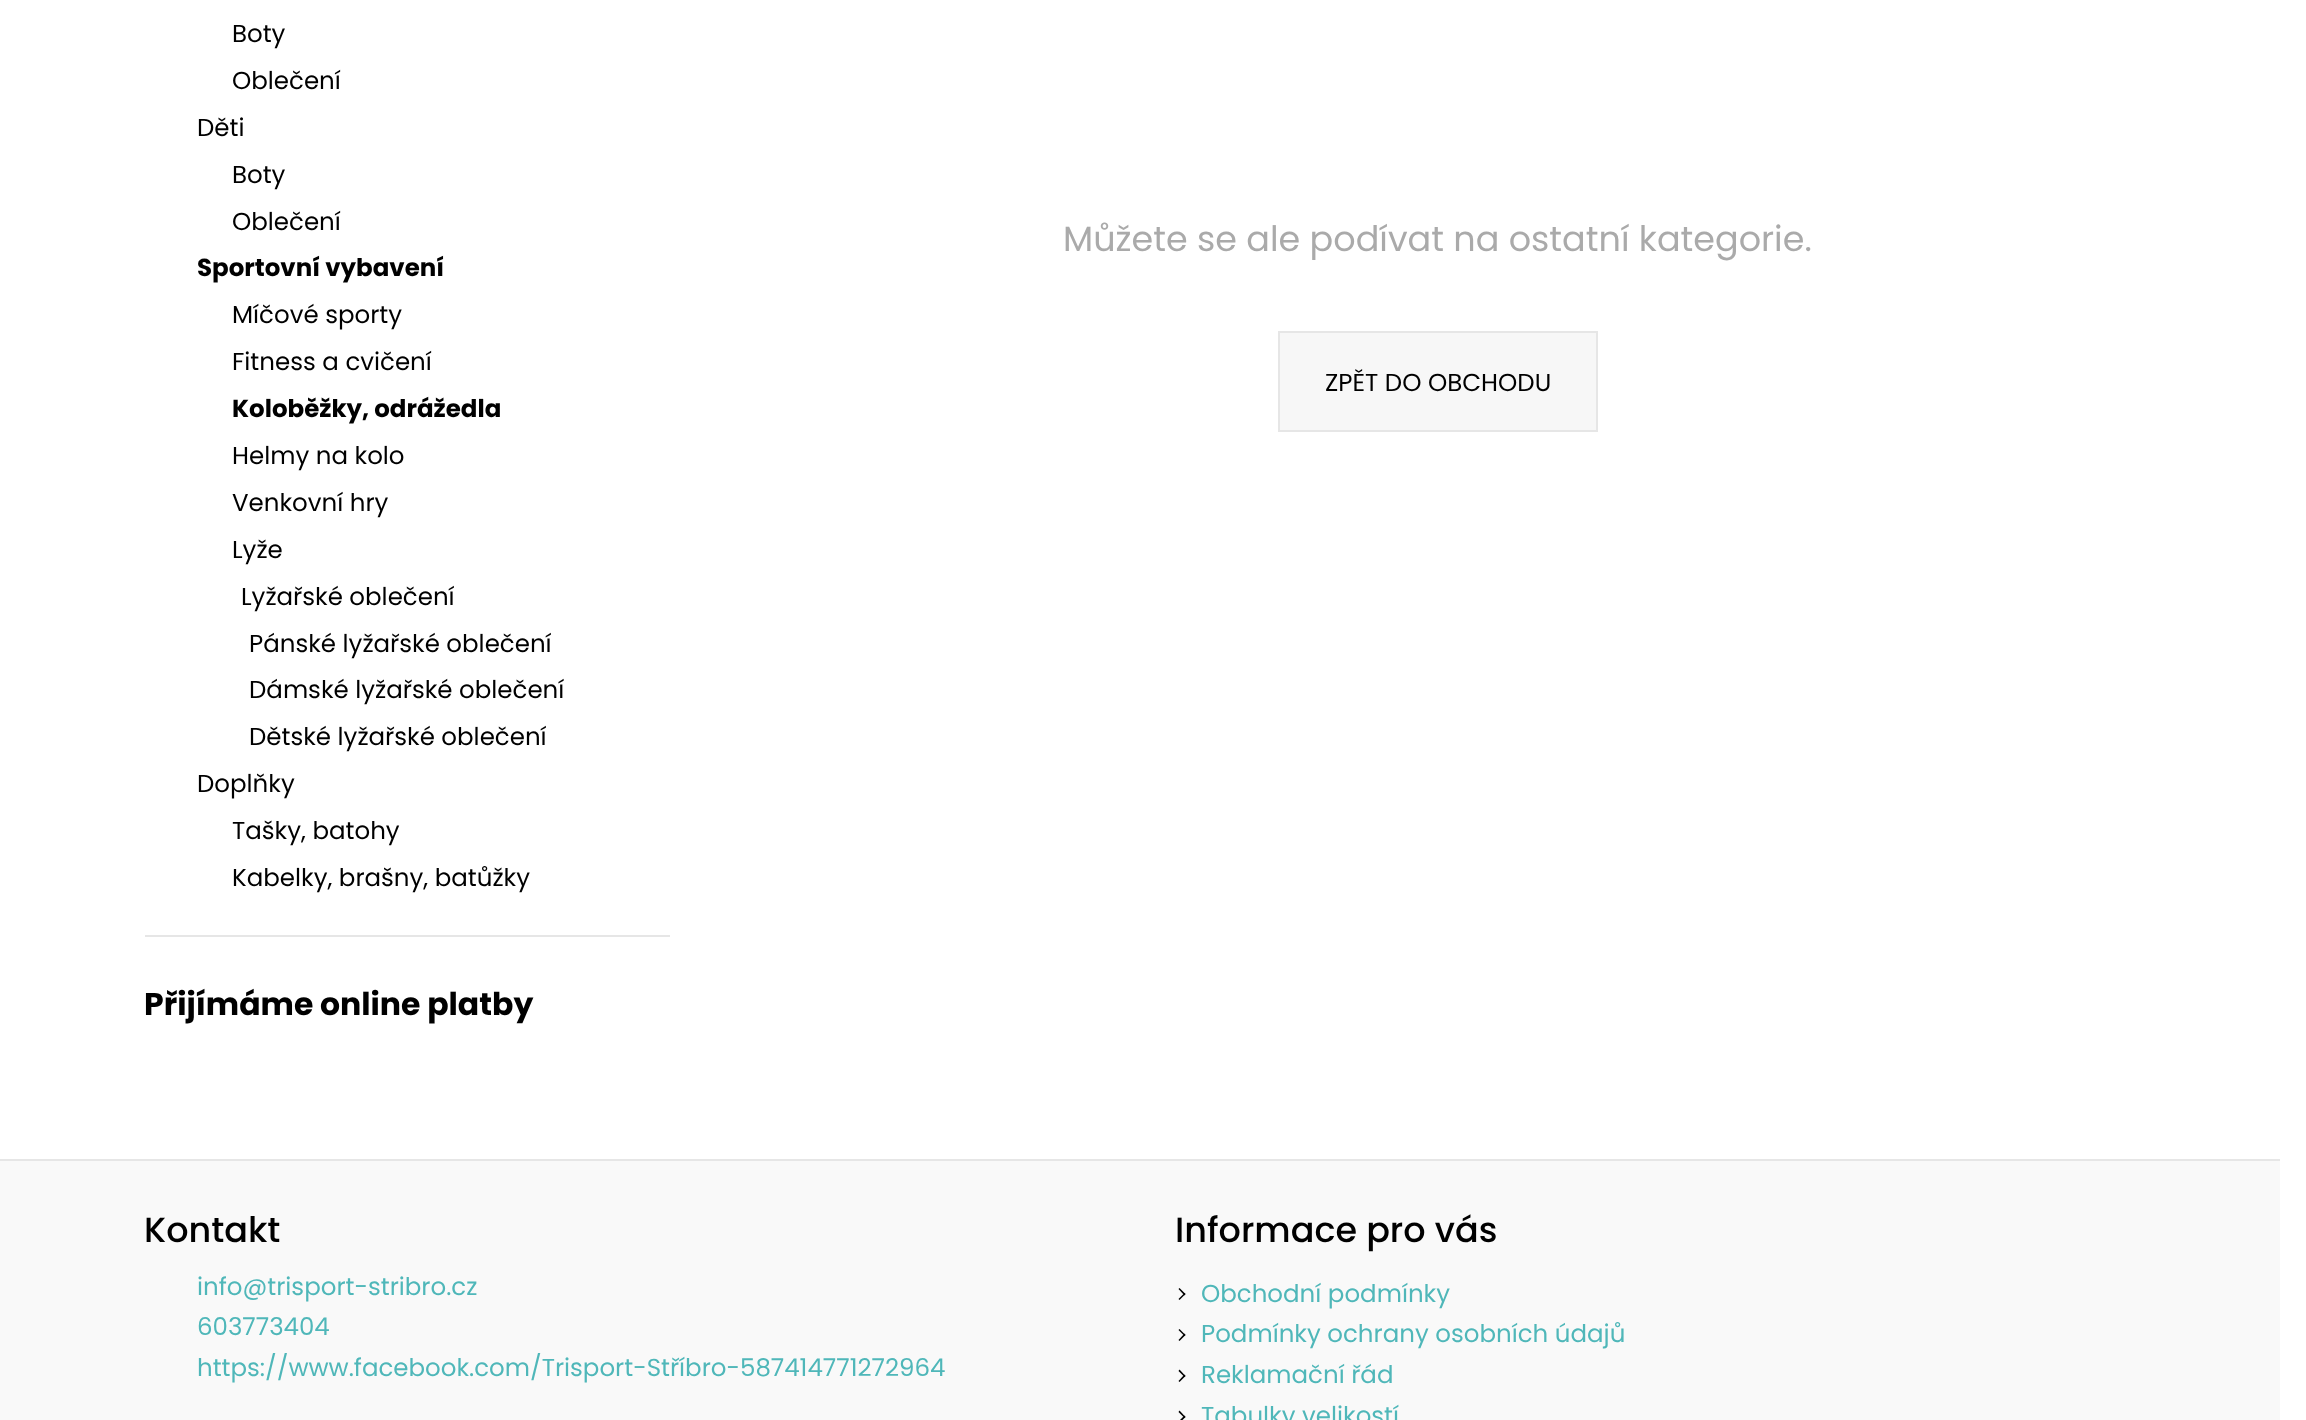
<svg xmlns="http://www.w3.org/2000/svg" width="2306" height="1420">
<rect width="100%" height="100%" fill="#fff"/>
<text x="232" y="42" style="font-family:Poppins;font-size:24.5px;fill:#000">Boty</text>
<text x="232" y="89" style="font-family:Poppins;font-size:24.5px;fill:#000">Oblečení</text>
<text x="197" y="136" style="font-family:Poppins;font-size:24.5px;fill:#000">Děti</text>
<text x="232" y="183" style="font-family:Poppins;font-size:24.5px;fill:#000">Boty</text>
<text x="232" y="230" style="font-family:Poppins;font-size:24.5px;fill:#000">Oblečení</text>
<text x="197" y="276" style="font-family:Poppins;font-size:24.5px;font-weight:bold;fill:#000">Sportovní vybavení</text>
<text x="232" y="323" style="font-family:Poppins;font-size:24.5px;fill:#000">Míčové sporty</text>
<text x="232" y="370" style="font-family:Poppins;font-size:24.5px;fill:#000">Fitness a cvičení</text>
<text x="232" y="417" style="font-family:Poppins;font-size:24.5px;font-weight:bold;fill:#000">Koloběžky, odrážedla</text>
<text x="232" y="464" style="font-family:Poppins;font-size:24.5px;fill:#000">Helmy na kolo</text>
<text x="232" y="511" style="font-family:Poppins;font-size:24.5px;fill:#000">Venkovní hry</text>
<text x="232" y="558" style="font-family:Poppins;font-size:24.5px;fill:#000">Lyže</text>
<text x="241" y="605" style="font-family:Poppins;font-size:24.5px;fill:#000">Lyžařské oblečení</text>
<text x="249" y="652" style="font-family:Poppins;font-size:24.5px;fill:#000">Pánské lyžařské oblečení</text>
<text x="249" y="698" style="font-family:Poppins;font-size:24.5px;fill:#000">Dámské lyžařské oblečení</text>
<text x="249" y="745" style="font-family:Poppins;font-size:24.5px;fill:#000">Dětské lyžařské oblečení</text>
<text x="197" y="792" style="font-family:Poppins;font-size:24.5px;fill:#000">Doplňky</text>
<text x="232" y="839" style="font-family:Poppins;font-size:24.5px;fill:#000">Tašky, batohy</text>
<text x="232" y="886" style="font-family:Poppins;font-size:24.5px;fill:#000">Kabelky, brašny, batůžky</text>
<rect x="145" y="935" width="525" height="2" fill="#e6e6e6"/>
<text x="144" y="1015" style="font-family:Poppins;font-size:31.5px;font-weight:bold;fill:#000">Přijímáme online platby</text>
<text x="1063" y="251" style="font-family:Poppins;font-size:35px;fill:#aaa">Můžete se ale podívat na ostatní kategorie.</text>
<rect x="1279" y="332" width="318" height="99" fill="#f7f7f7" stroke="#e6e6e6" stroke-width="2"/>
<text x="1325" y="391" style="font-family:Poppins;font-size:24.5px;fill:#000">ZPĚT DO OBCHODU</text>
<rect y="1161" width="2280" height="259" fill="#f9f9f9"/>
<rect y="1159" width="2280" height="2" fill="#e6e6e6"/>
<text x="144" y="1242" style="font-family:Poppins;font-size:35px;font-weight:500;fill:#000">Kontakt</text>
<text x="197" y="1295" style="font-family:Poppins;font-size:24.5px;fill:#4fb7b9">info@trisport-stribro.cz</text>
<text x="197" y="1335" style="font-family:Poppins;font-size:24.5px;fill:#4fb7b9">603773404</text>
<text x="197" y="1376" style="font-family:Poppins;font-size:24.5px;fill:#4fb7b9">https://www.facebook.com/Trisport-Stříbro-587414771272964</text>
<text x="1175" y="1242" style="font-family:Poppins;font-size:35px;font-weight:500;fill:#000">Informace pro vás</text>
<path d="M1178.5 1289l1-1l6 6l-1 1.5z" fill="#000"/>
<path d="M1178.5 1299l6-6l1 1l-6 6z" fill="#000"/>
<text x="1201" y="1302" style="font-family:Poppins;font-size:24.5px;fill:#4fb7b9">Obchodní podmínky</text>
<path d="M1178.5 1330l1-1l6 6l-1 1z" fill="#000"/>
<path d="M1178.5 1340l6-6.5l1 1.5l-6 6z" fill="#000"/>
<text x="1201" y="1342" style="font-family:Poppins;font-size:24.5px;fill:#4fb7b9">Podmínky ochrany osobních údajů</text>
<path d="M1178.5 1371l1-1.5l6 6.5l-1 1z" fill="#000"/>
<path d="M1178.5 1381l6-6.5l1 1.5l-6 6z" fill="#000"/>
<text x="1201" y="1383" style="font-family:Poppins;font-size:24.5px;fill:#4fb7b9">Reklamační řád</text>
<path d="M1178.5 1412l1-1.5l6 6.5l-1 1z" fill="#000"/>
<path d="M1178.5 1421.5l6-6l1 1.5l-6 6z" fill="#000"/>
<text x="1201" y="1424" style="font-family:Poppins;font-size:24.5px;fill:#4fb7b9">Tabulky velikostí</text>
</svg>
